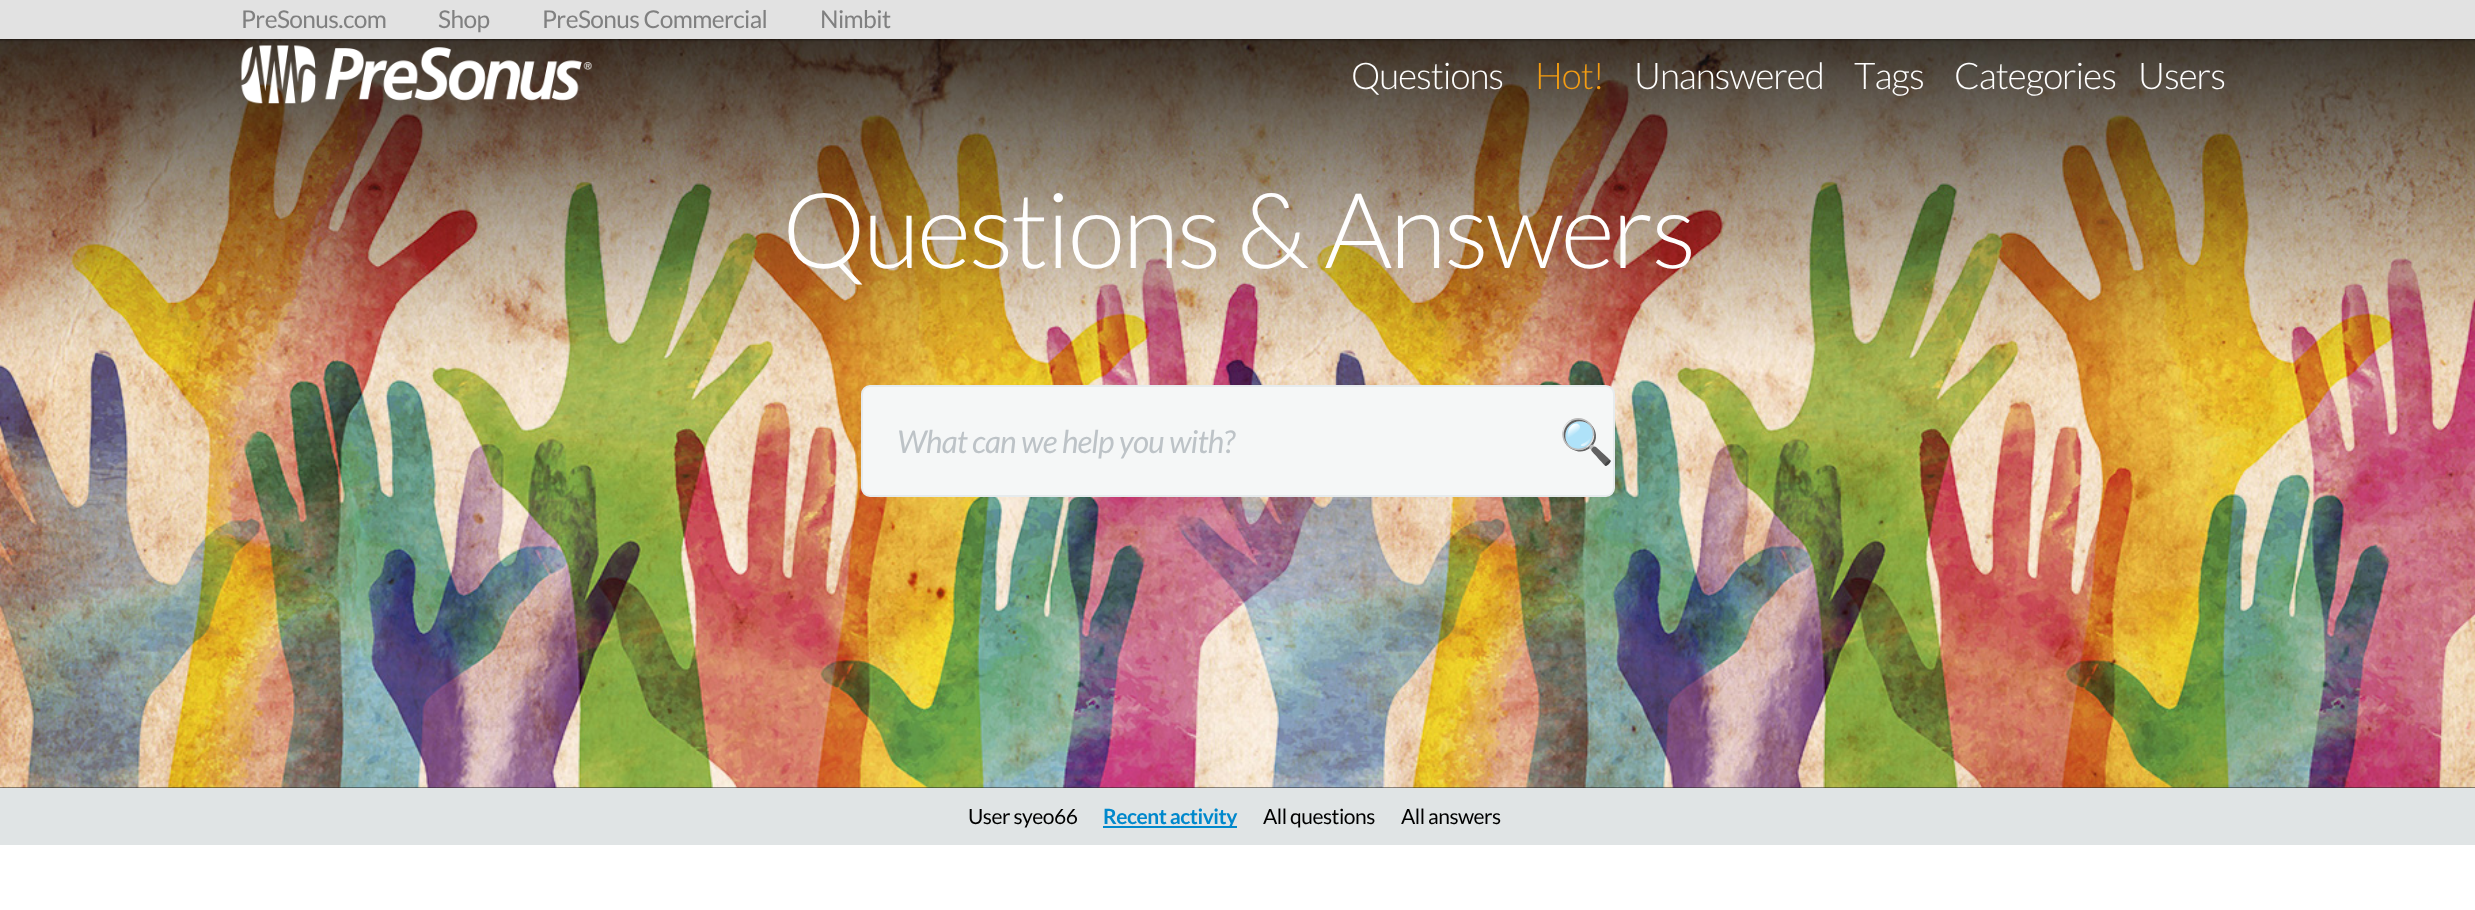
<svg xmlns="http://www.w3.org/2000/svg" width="2475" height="910">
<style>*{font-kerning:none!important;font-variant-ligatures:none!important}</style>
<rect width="100%" height="100%" fill="#fff"/>
<rect y="787" width="2475" height="1" fill="#222"/>
<image x="0" y="39" width="2475" height="749" href="media/2.png"/>
<rect x="-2" y="-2" width="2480" height="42" fill="#00000080" filter="blur(1px)"/>
<rect width="2475" height="39" fill="#e2e2e2"/>
<text x="241" y="28" style="font-family:Lato;font-size:24.5px;letter-spacing:-0.6px;fill:#808080">PreSonus.com</text>
<text x="438" y="28" style="font-family:Lato;font-size:24.5px;letter-spacing:-0.6px;fill:#808080">Shop</text>
<text x="542" y="28" style="font-family:Lato;font-size:24.5px;letter-spacing:-0.6px;fill:#808080">PreSonus Commercial</text>
<text x="820" y="28" style="font-family:Lato;font-size:24.5px;letter-spacing:-0.6px;fill:#808080">Nimbit</text>
<image x="241" y="45" width="351" height="59" href="media/1.png"/>
<text x="1351" y="89" style="font-family:Lato;font-size:36.75px;font-weight:300;letter-spacing:-1px;fill:#fefefe">Questions</text>
<text x="1535" y="89" style="font-family:Lato;font-size:36.75px;font-weight:300;letter-spacing:-1px;fill:#f39c12">Hot!</text>
<text x="1634" y="89" style="font-family:Lato;font-size:36.75px;font-weight:300;letter-spacing:-1px;fill:#fefefe">Unanswered</text>
<text x="1854" y="89" style="font-family:Lato;font-size:36.75px;font-weight:300;letter-spacing:-1px;fill:#fefefe">Tags</text>
<text x="1954" y="89" style="font-family:Lato;font-size:36.75px;font-weight:300;letter-spacing:-1px;fill:#fefefe">Categories</text>
<text x="2138" y="89" style="font-family:Lato;font-size:36.75px;font-weight:300;letter-spacing:-1px;fill:#fefefe">Users</text>
<text x="782" y="268" style="font-family:Lato;font-size:105px;font-weight:300;letter-spacing:-2.6px;fill:#fefefe">Questions &amp; Answers</text>
<rect x="862" y="386" width="752" height="110" rx="8" fill="#f5f7f7" stroke="#e6ebed" stroke-width="2"/>
<text x="897" y="453" style="font-family:Lato;font-size:31.5px;font-style:italic;letter-spacing:-0.8px;fill:#bdc3c7">What can we help you with?</text>
<text x="1559" y="457" style="font-family:Noto Color Emoji;font-size:44px;letter-spacing:-0.6px;fill:#ccc">🔍</text>
<rect y="788" width="2475" height="57" fill="#e0e4e5"/>
<text x="968" y="824" style="font-family:Lato;font-size:21px;letter-spacing:-0.5px;fill:#000">User syeo66</text>
<rect x="1103" y="826" width="134" height="2" fill="#08c"/>
<text x="1103" y="824" style="font-family:Lato;font-size:21px;font-weight:bold;letter-spacing:-0.5px;fill:#08c">Recent activity</text>
<text x="1263" y="824" style="font-family:Lato;font-size:21px;letter-spacing:-0.5px;fill:#000">All questions</text>
<text x="1401" y="824" style="font-family:Lato;font-size:21px;letter-spacing:-0.5px;fill:#000">All answers</text>
</svg>
